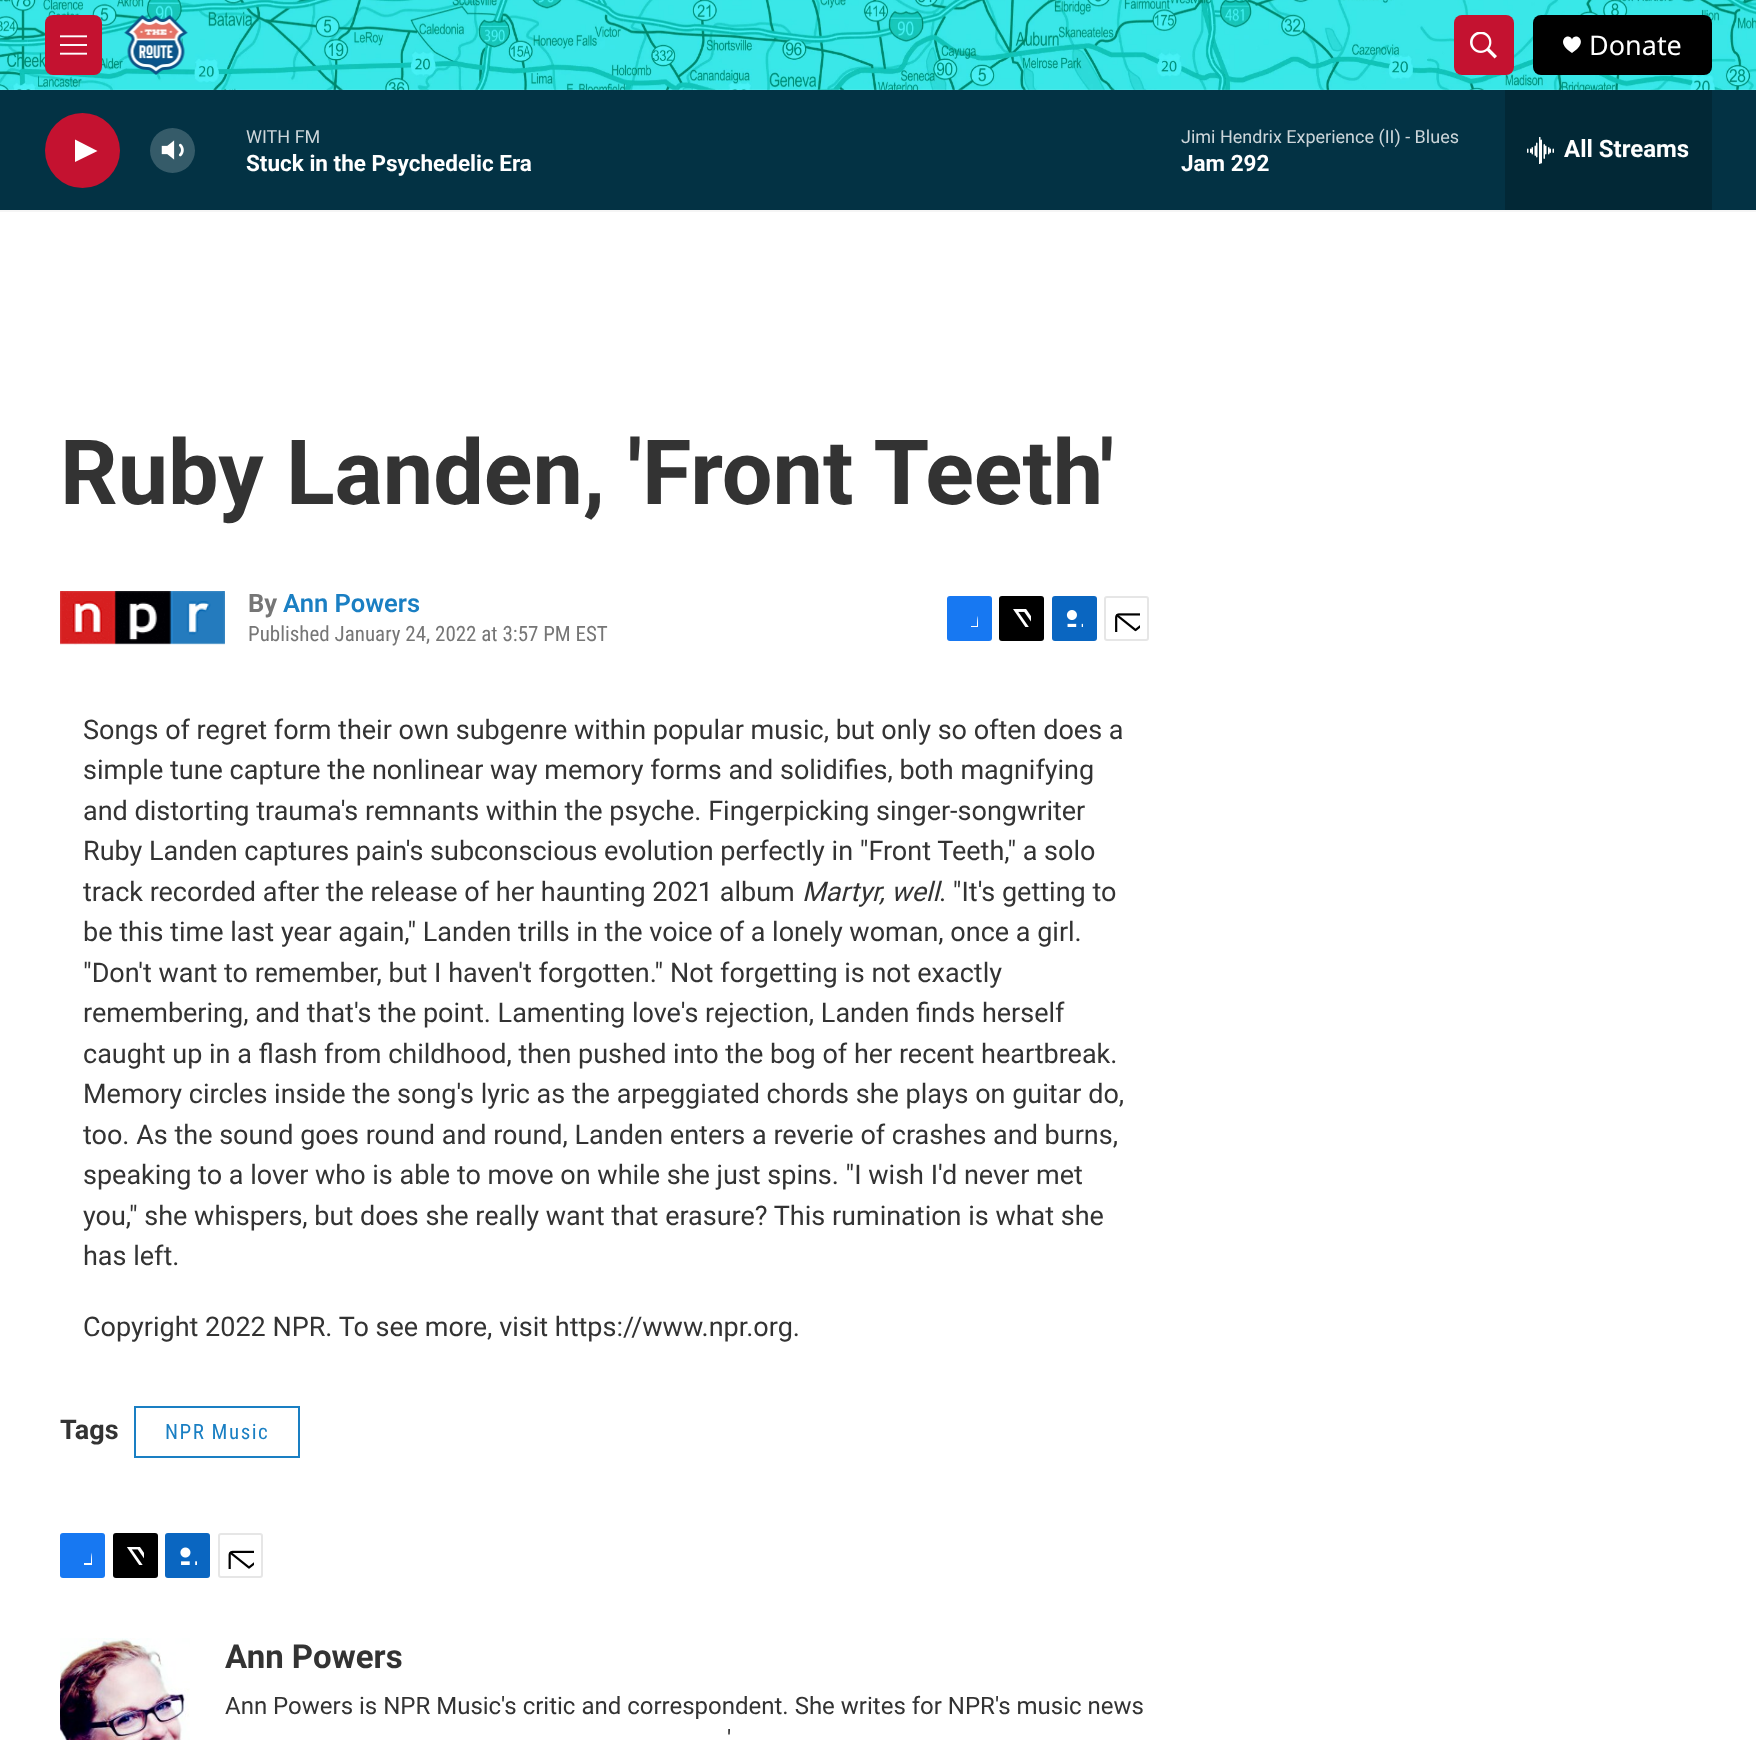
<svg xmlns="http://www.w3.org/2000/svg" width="1756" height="1740">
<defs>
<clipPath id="clip1"><rect x="960" y="609" width="18" height="18"/></clipPath>
<clipPath id="clip2"><rect x="74" y="1547" width="18" height="18"/></clipPath>
</defs>
<rect width="100%" height="100%" fill="#fff"/>
<rect y="210" width="1756" height="2" fill="#f5f5f5"/>
<image x="0" y="0" width="1756" height="90" href="media/1.png"/>
<rect x="45" y="15" width="57" height="60" rx="8" fill="#c41230"/>
<image x="60" y="35" width="27" height="20" href="media/2.png"/>
<image x="124" y="15" width="64" height="60" href="media/3.png"/>
<rect x="1454" y="15" width="60" height="60" rx="8" fill="#c41230"/>
<image x="1470" y="32" width="27" height="27" href="media/4.png"/>
<rect x="1533" y="15" width="179" height="60" rx="8" fill="#000"/>
<path d="M1572 39.5c-3-8-18.5 2 0 13.5c18.5-11.5 3-21.5 0-13.5z" fill="#fff"/>
<text x="1589" y="55" style="font-family:Noto Sans;font-size:27px;fill:#fff">Donate</text>
<rect y="90" width="1756" height="120" fill="#033244"/>
<circle cx="82.5" cy="150.5" r="37.5" fill="#c41230"/>
<path d="M75 139.5l22.5 11.5l-22.5 11z" fill="#fff"/>
<image x="161" y="140" width="23" height="20" href="media/5.png"/>
<circle cx="172.5" cy="150.5" r="22.5" fill="#ffffff33"/>
<text x="246" y="143" style="font-family:Roboto;font-size:18px;fill:#cdd6da">WITH FM</text>
<text x="246" y="171" style="font-family:'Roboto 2';font-size:22.5px;font-weight:bold;fill:#fff">Stuck in the Psychedelic Era</text>
<text x="1181" y="143" style="font-family:Roboto;font-size:18px;fill:#cdd6da">Jimi Hendrix Experience (II) - Blues</text>
<text x="1181" y="171" style="font-family:'Roboto 2';font-size:22.5px;font-weight:bold;fill:#fff">Jam 292</text>
<rect x="1505" y="90" width="207" height="120" fill="#022836"/>
<image x="1527" y="137" width="27" height="27" href="media/6.png"/>
<text x="1564" y="157" style="font-family:'Roboto 2';font-size:24px;font-weight:bold;fill:#fff">All Streams</text>
<text x="60" y="504" style="font-family:Roboto;font-size:90px;font-weight:bold;fill:#333">Ruby Landen, 'Front Teeth'</text>
<image x="60" y="591" width="165" height="54" href="media/7.png"/>
<text x="248" y="612" style="font-family:Roboto;font-size:25.5px;font-weight:bold;fill:#767676">By</text>
<text x="283" y="612" style="font-family:Roboto;font-size:25.5px;font-weight:600;fill:#1a7fc3">Ann Powers</text>
<text x="248" y="641" style="font-family:Roboto Condensed;font-size:21px;fill:#767676">Published January 24, 2022 at 3:57 PM EST</text>
<rect x="947" y="596" width="45" height="45" rx="3" fill="#1778f2"/>
<g clip-path="url(#clip1)">
<path d="M985 641h-8v-8h-6v-7h6c0-12.5 2-18 15-16v7c-8.5 0-7 1.5-7 9h7l-1 7h-6z" fill="#fff"/>
</g>
<rect x="999" y="596" width="45" height="45" rx="3" fill="#000"/>
<image x="1013" y="609" width="18" height="18" href="media/8.png"/>
<rect x="1052" y="596" width="45" height="45" rx="3" fill="#0a66c1"/>
<image x="1066" y="610" width="17" height="17" href="media/9.png"/>
<rect x="1105" y="597" width="43" height="43" rx="2" fill="none" stroke="#e6e6e6" stroke-width="2"/>
<image x="1115" y="613" width="25" height="19" href="media/10.png"/>
<text x="83" y="739" style="font-family:Roboto;font-size:27px;fill:#333">Songs of regret form their own subgenre within popular music, but only so often does a</text>
<text x="83" y="779" style="font-family:Roboto;font-size:27px;fill:#333">simple tune capture the nonlinear way memory forms and solidifies, both magnifying</text>
<text x="83" y="820" style="font-family:Roboto;font-size:27px;fill:#333">and distorting trauma's remnants within the psyche. Fingerpicking singer-songwriter</text>
<text x="83" y="860" style="font-family:Roboto;font-size:27px;fill:#333">Ruby Landen captures pain's subconscious evolution perfectly in "Front Teeth," a solo</text>
<text x="83" y="901" style="font-family:Roboto;font-size:27px;fill:#333">track recorded after the release of her haunting 2021 album</text>
<text x="802" y="901" style="font-family:Roboto;font-size:27px;font-style:italic;fill:#333">Martyr, well</text>
<text x="939" y="901" style="font-family:Roboto;font-size:27px;fill:#333">. "It's getting to</text>
<text x="83" y="941" style="font-family:Roboto;font-size:27px;fill:#333">be this time last year again," Landen trills in the voice of a lonely woman, once a girl.</text>
<text x="83" y="982" style="font-family:Roboto;font-size:27px;fill:#333">"Don't want to remember, but I haven't forgotten." Not forgetting is not exactly</text>
<text x="83" y="1022" style="font-family:Roboto;font-size:27px;fill:#333">remembering, and that's the point. Lamenting love's rejection, Landen finds herself</text>
<text x="83" y="1063" style="font-family:Roboto;font-size:27px;fill:#333">caught up in a flash from childhood, then pushed into the bog of her recent heartbreak.</text>
<text x="83" y="1103" style="font-family:Roboto;font-size:27px;fill:#333">Memory circles inside the song's lyric as the arpeggiated chords she plays on guitar do,</text>
<text x="83" y="1144" style="font-family:Roboto;font-size:27px;fill:#333">too. As the sound goes round and round, Landen enters a reverie of crashes and burns,</text>
<text x="83" y="1184" style="font-family:Roboto;font-size:27px;fill:#333">speaking to a lover who is able to move on while she just spins. "I wish I'd never met</text>
<text x="83" y="1225" style="font-family:Roboto;font-size:27px;fill:#333">you," she whispers, but does she really want that erasure? This rumination is what she</text>
<text x="83" y="1265" style="font-family:Roboto;font-size:27px;fill:#333">has left.</text>
<text x="83" y="1336" style="font-family:Roboto;font-size:27px;fill:#333">Copyright 2022 NPR. To see more, visit https://www.npr.org.</text>
<text x="60" y="1439" style="font-family:Roboto;font-size:27px;font-weight:bold;fill:#333">Tags</text>
<rect x="135" y="1407" width="164" height="50" fill="none" stroke="#1a7fc3" stroke-width="2"/>
<text x="165" y="1439" style="font-family:Roboto Condensed;font-size:21px;letter-spacing:1.5px;fill:#1a7fc3">NPR Music</text>
<rect x="60" y="1533" width="45" height="45" rx="3" fill="#1778f2"/>
<g clip-path="url(#clip2)">
<path d="M98 1578h-7v-7h-7v-8h7c0-11.5 1-17.5 14-16v7c-8 0-7 2.5-7 9h7l-1 8h-6z" fill="#fff"/>
</g>
<rect x="113" y="1533" width="45" height="45" rx="3" fill="#000"/>
<image x="127" y="1547" width="17" height="18" href="media/11.png"/>
<rect x="165" y="1533" width="45" height="45" rx="3" fill="#0a66c1"/>
<image x="180" y="1547" width="17" height="18" href="media/12.png"/>
<rect x="219" y="1534" width="43" height="43" rx="2" fill="none" stroke="#e6e6e6" stroke-width="2"/>
<image x="228" y="1550" width="26" height="19" href="media/13.png"/>
<image x="60" y="1638" width="130" height="102" href="media/14.png"/>
<text x="225" y="1668" style="font-family:Roboto;font-size:33px;font-weight:bold;fill:#333">Ann Powers</text>
<text x="225" y="1714" style="font-family:Roboto;font-size:24px;fill:#333">Ann Powers is NPR Music's critic and correspondent. She writes for NPR's music news</text>
<text x="727" y="1747" style="font-family:Roboto;font-size:24px;fill:#333">'</text>
</svg>
